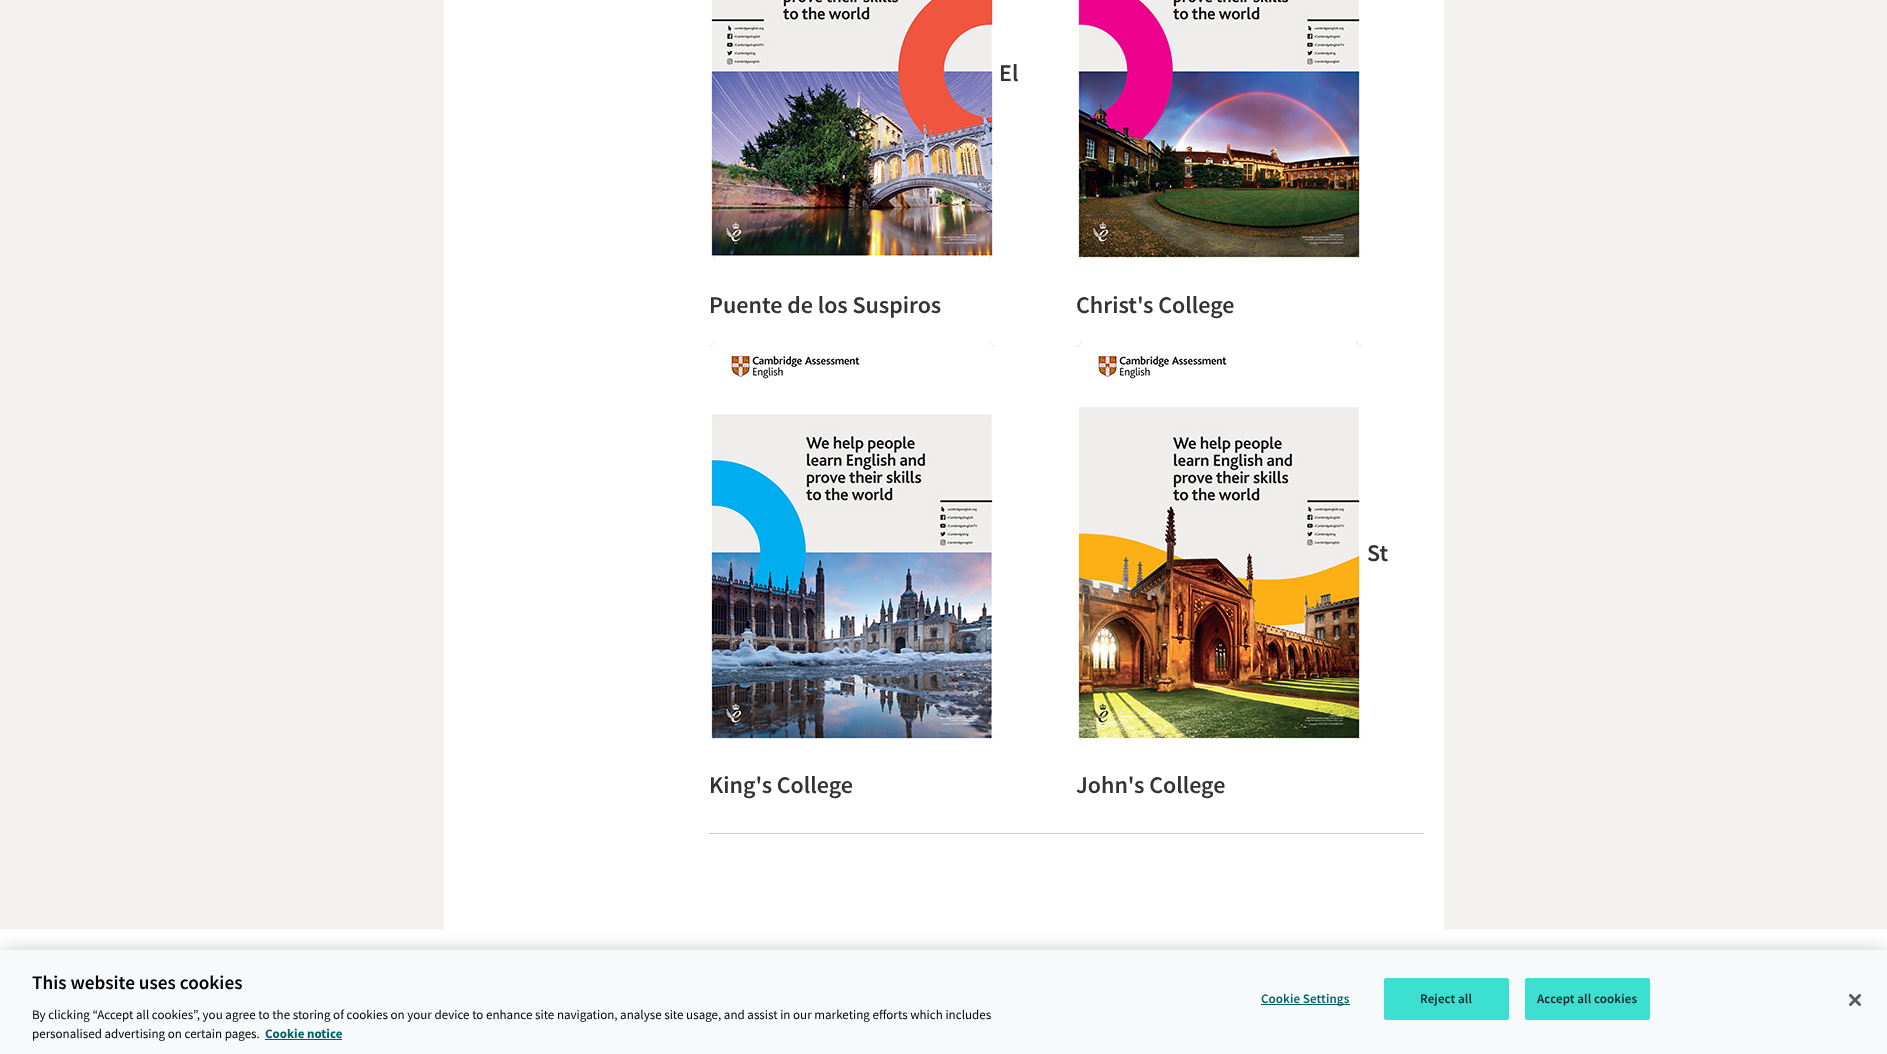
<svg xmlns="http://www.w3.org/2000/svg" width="1887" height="1054">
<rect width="100%" height="100%" fill="#fff"/>
<rect width="1887" height="929" fill="#f2f1f0"/>
<rect x="444" width="1000" height="929" fill="#fff"/>
<image x="709" y="0" width="286" height="260" href="media/1.png"/>
<text x="999" y="81" style="font-family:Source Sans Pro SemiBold;font-size:24px;font-weight:600;fill:#333">El</text>
<text x="709" y="313" style="font-family:Source Sans Pro SemiBold;font-size:24px;font-weight:600;fill:#333">Puente de los Suspiros</text>
<image x="1076" y="0" width="286" height="260" href="media/2.png"/>
<text x="1076" y="313" style="font-family:Source Sans Pro SemiBold;font-size:24px;font-weight:600;fill:#333">Christ's College</text>
<image x="709" y="341" width="286" height="400" href="media/3.png"/>
<text x="709" y="793" style="font-family:Source Sans Pro SemiBold;font-size:24px;font-weight:600;fill:#333">King's College</text>
<image x="1076" y="341" width="286" height="400" href="media/4.png"/>
<text x="1367" y="561" style="font-family:Source Sans Pro SemiBold;font-size:24px;font-weight:600;fill:#333">St</text>
<text x="1076" y="793" style="font-family:Source Sans Pro SemiBold;font-size:24px;font-weight:600;fill:#333">John's College</text>
<rect x="709" y="833" width="715" height="1" fill="#ccc"/>
<rect y="950" width="1887" height="104" fill="#00000033" filter="blur(9px)"/>
<rect y="950" width="1887" height="104" fill="#f7fafa"/>
<text x="32" y="989" style="font-family:Source Sans Pro SemiBold;font-size:19.25px;font-weight:600;fill:#000">This website uses cookies</text>
<text x="32" y="1019" style="font-family:Source Sans Pro;font-size:13px;fill:#000">By clicking “Accept all cookies”, you agree to the storing of cookies on your device to enhance site navigation, analyse site usage, and assist in our marketing efforts which includes</text>
<text x="32" y="1038" style="font-family:Source Sans Pro;font-size:13px;fill:#000">personalised advertising on certain pages.</text>
<text x="265" y="1038" style="font-family:Source Sans Pro;font-size:13px;font-weight:bold;fill:#036268">Cookie notice</text>
<rect x="265" y="1039" width="77" height="1" fill="#036268"/>
<rect x="1261" y="1004" width="89" height="1" fill="#036268"/>
<text x="1261" y="1003" style="font-family:Source Sans Pro SemiBold;font-size:13px;font-weight:600;letter-spacing:0.1px;fill:#036268">Cookie Settings</text>
<rect x="1384.5" y="978.5" width="124" height="41" rx="1.5" fill="#3be0d0" stroke="#3be0d0"/>
<text x="1420" y="1003" style="font-family:Source Sans Pro SemiBold;font-size:13px;font-weight:600;letter-spacing:0.1px;fill:#112730">Reject all</text>
<rect x="1525.5" y="978.5" width="124" height="41" rx="1.5" fill="#3be0d0" stroke="#3be0d0"/>
<text x="1537" y="1003" style="font-family:Source Sans Pro SemiBold;font-size:13px;font-weight:600;letter-spacing:0.1px;fill:#112730">Accept all cookies</text>
<image x="1849" y="994" width="12" height="12" href="media/5.png"/>
</svg>
